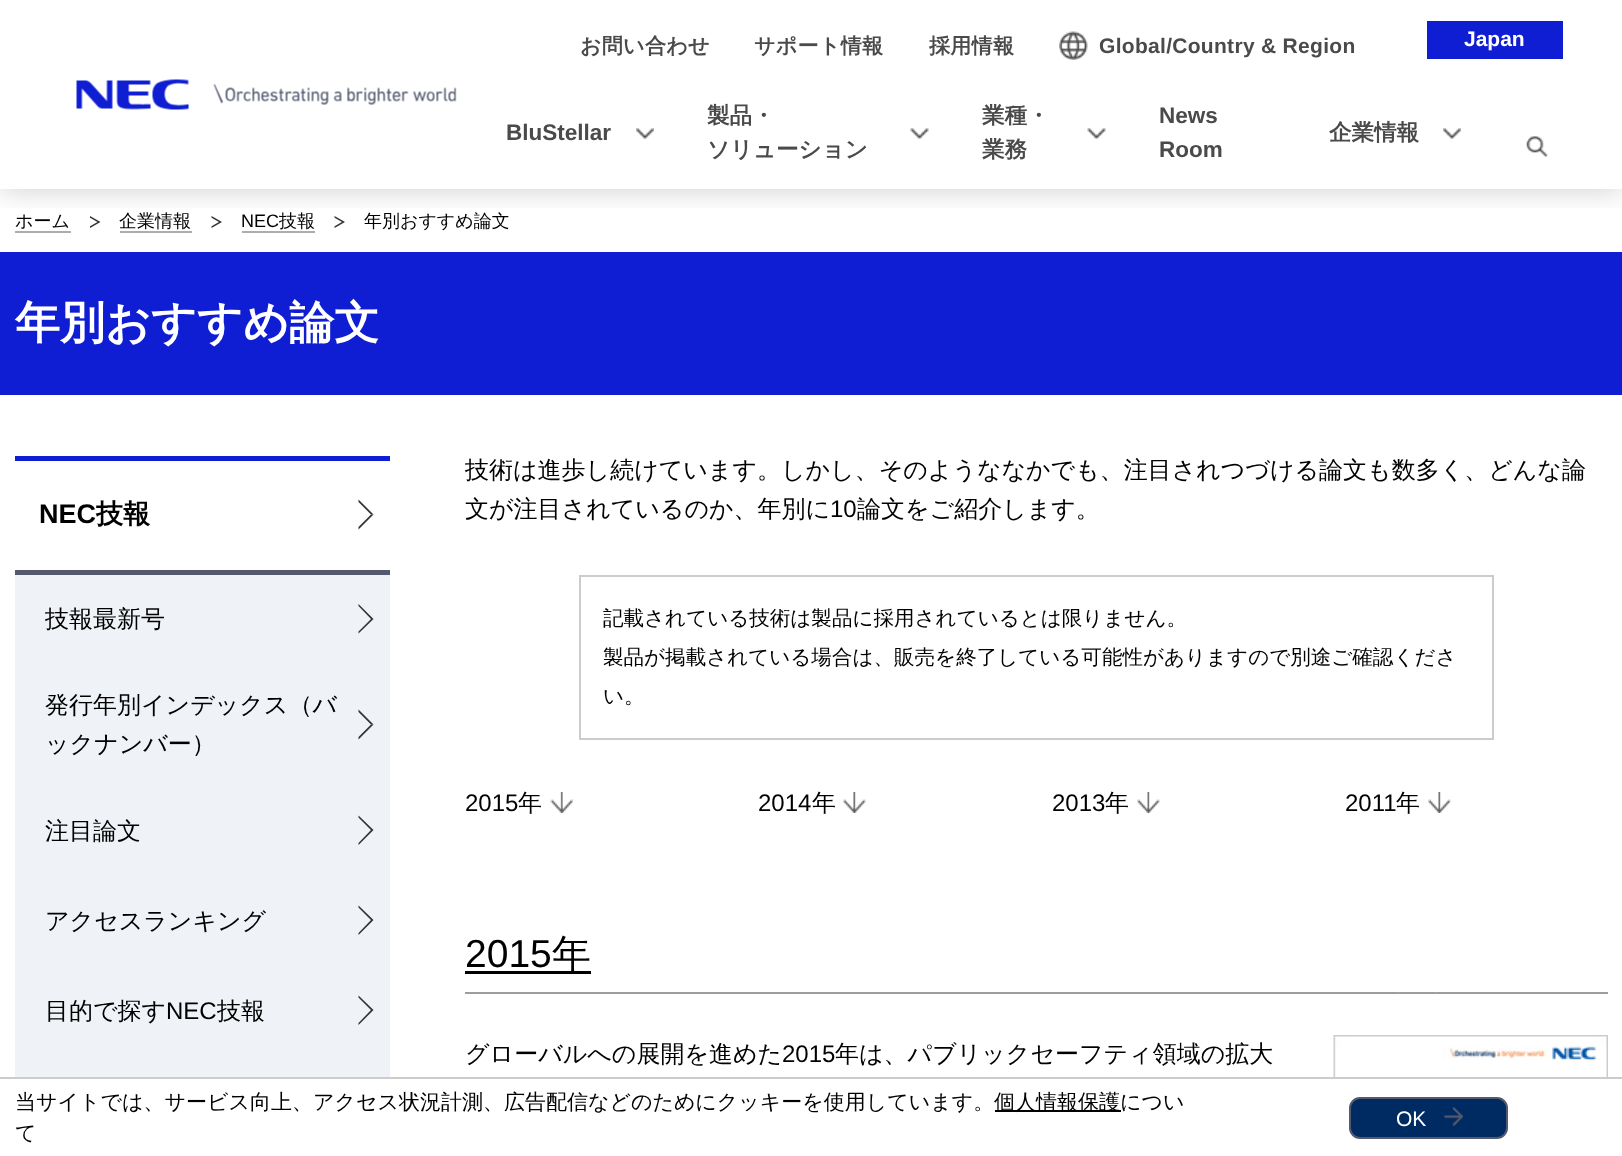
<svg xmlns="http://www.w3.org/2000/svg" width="1622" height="1156">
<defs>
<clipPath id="clip1"><rect x="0" y="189" width="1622" height="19"/></clipPath>
</defs>
<rect width="100%" height="100%" fill="#fff"/>
<rect x="15" y="231" width="56" height="2" fill="#adadad"/>
<path d="M90 228v-12l10.5 6z" fill="#333"/>
<path d="M87 228v-12l10.5 6z" fill="#fff"/>
<rect x="120" y="231" width="72" height="2" fill="#adadad"/>
<path d="M211.5 228v-12l10.5 6z" fill="#333"/>
<path d="M208.5 228v-12l10.5 6z" fill="#fff"/>
<rect x="242" y="231" width="73" height="2" fill="#adadad"/>
<path d="M334.5 228v-12l10.5 6z" fill="#333"/>
<path d="M331.5 228v-12l10.5 6z" fill="#fff"/>
<g clip-path="url(#clip1)">
<rect width="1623" height="189" fill="#00000033" filter="blur(15px)"/>
</g>
<image x="76" y="79" width="381" height="31" href="media/1.png"/>
<text x="580" y="53" style="font-family:WenQuanYi Zen Hei;font-size:21px;font-weight:bold;letter-spacing:0.3px;fill:#4a4a4a">お問い合わせ</text>
<text x="754" y="53" style="font-family:WenQuanYi Zen Hei;font-size:21px;font-weight:bold;letter-spacing:0.3px;fill:#4a4a4a">サポート情報</text>
<text x="929" y="53" style="font-family:WenQuanYi Zen Hei;font-size:21px;font-weight:bold;letter-spacing:0.3px;fill:#4a4a4a">採用情報</text>
<image x="1059" y="31" width="29" height="29" href="media/2.png"/>
<text x="1099" y="53" style="font-family:Liberation Sans;font-size:21px;font-weight:bold;letter-spacing:0.3px;fill:#4a4a4a">Global/Country &amp; Region</text>
<text x="506" y="140" style="font-family:Liberation Sans;font-size:22.5px;font-weight:bold;fill:#4a4a4a">BluStellar</text>
<image x="636" y="128" width="18" height="11" href="media/3.png"/>
<text x="707" y="123" style="font-family:WenQuanYi Zen Hei;font-size:22.5px;font-weight:bold;fill:#4a4a4a">製品・</text>
<text x="707" y="157" style="font-family:WenQuanYi Zen Hei;font-size:22.5px;font-weight:bold;fill:#4a4a4a">ソリューション</text>
<image x="910" y="128" width="19" height="11" href="media/4.png"/>
<text x="982" y="123" style="font-family:WenQuanYi Zen Hei;font-size:22.5px;font-weight:bold;fill:#4a4a4a">業種・</text>
<text x="982" y="157" style="font-family:WenQuanYi Zen Hei;font-size:22.5px;font-weight:bold;fill:#4a4a4a">業務</text>
<image x="1087" y="128" width="19" height="11" href="media/4.png"/>
<text x="1159" y="123" style="font-family:Liberation Sans;font-size:22.5px;font-weight:bold;fill:#4a4a4a">News</text>
<text x="1159" y="157" style="font-family:Liberation Sans;font-size:22.5px;font-weight:bold;fill:#4a4a4a">Room</text>
<text x="1329" y="140" style="font-family:WenQuanYi Zen Hei;font-size:22.5px;font-weight:bold;fill:#4a4a4a">企業情報</text>
<image x="1443" y="128" width="18" height="11" href="media/3.png"/>
<rect x="1427" y="21" width="136" height="38" fill="#0f1ed2"/>
<text x="1464" y="46" style="font-family:Liberation Sans;font-size:21px;font-weight:bold;fill:#fff">Japan</text>
<image x="1526" y="136" width="22" height="22" href="media/5.png"/>
<text x="15" y="227" style="font-family:WenQuanYi Zen Hei;font-size:18px;font-weight:500;fill:#000">ホーム</text>
<text x="119" y="227" style="font-family:WenQuanYi Zen Hei;font-size:18px;font-weight:500;fill:#000">企業情報</text>
<text x="241" y="227" style="font-family:Liberation Sans;font-size:18px;fill:#000">NEC</text>
<text x="279" y="227" style="font-family:WenQuanYi Zen Hei;font-size:18px;font-weight:500;fill:#000">技報</text>
<text x="364" y="227" style="font-family:WenQuanYi Zen Hei;font-size:18px;font-weight:500;fill:#000">年別おすすめ論文</text>
<rect y="252" width="1622" height="143" fill="#0f1ed2"/>
<text x="15" y="338" style="font-family:WenQuanYi Zen Hei;font-size:45px;font-weight:bold;fill:#fff">年別おすすめ論文</text>
<rect x="15" y="456" width="375" height="5" fill="#0f1ed2"/>
<rect x="15" y="570" width="375" height="5" fill="#535a6e"/>
<text x="39" y="523" style="font-family:Liberation Sans;font-size:27px;font-weight:bold;fill:#000">NEC</text>
<text x="96" y="523" style="font-family:WenQuanYi Zen Hei;font-size:27px;font-weight:bold;fill:#000">技報</text>
<path d="M358.5 499.5l15 15h-2.5l-12.5-12.5z" fill="#333"/>
<path d="M373.5 514.5l-15 15v-2.5l12.5-12.5z" fill="#333"/>
<rect x="15" y="575" width="375" height="502" fill="#eff2f6"/>
<text x="45" y="627" style="font-family:WenQuanYi Zen Hei;font-size:24px;font-weight:500;fill:#000">技報最新号</text>
<path d="M358.5 604l15 15h-2.5l-12.5-13zm15 15l-15 14.5v-2l12.5-12.5z" fill="#333"/>
<text x="45" y="713" style="font-family:WenQuanYi Zen Hei;font-size:24px;font-weight:500;fill:#000">発行年別インデックス（バ</text>
<path d="M358.5 709.5l15 15h-2.5l-12.5-12.5z" fill="#333"/>
<path d="M373.5 724.5l-15 15v-2.5l12.5-12.5z" fill="#333"/>
<text x="45" y="752" style="font-family:WenQuanYi Zen Hei;font-size:24px;font-weight:500;fill:#000">ックナンバー）</text>
<text x="45" y="839" style="font-family:WenQuanYi Zen Hei;font-size:24px;font-weight:500;fill:#000">注目論文</text>
<path d="M358.5 815.5l15 14.5h-2.5l-12.5-12.5zm15 14.5l-15 15v-2l12.5-13z" fill="#333"/>
<text x="45" y="929" style="font-family:WenQuanYi Zen Hei;font-size:24px;font-weight:500;fill:#000">アクセスランキング</text>
<path d="M358.5 905.5l15 14.5h-2.5l-12.5-12.5zm15 14.5l-15 15v-2l12.5-13z" fill="#333"/>
<text x="45" y="1019" style="font-family:WenQuanYi Zen Hei;font-size:24px;font-weight:500;fill:#000">目的で探す</text>
<text x="166" y="1019" style="font-family:Liberation Sans;font-size:24px;fill:#000">NEC</text>
<text x="217" y="1019" style="font-family:WenQuanYi Zen Hei;font-size:24px;font-weight:500;fill:#000">技報</text>
<path d="M358.5 995.5l15 14.5h-2.5l-12.5-12.5zm15 14.5l-15 15v-2l12.5-13z" fill="#333"/>
<text x="465" y="478" style="font-family:WenQuanYi Zen Hei;font-size:24px;font-weight:500;fill:#000">技術は進歩し続けています。しかし、そのようななかでも、注目されつづける論文も数多く、どんな論</text>
<text x="465" y="517" style="font-family:WenQuanYi Zen Hei;font-size:24px;font-weight:500;fill:#000">文が注目されているのか、年別に</text>
<text x="830" y="517" style="font-family:Liberation Sans;font-size:24px;fill:#000">10</text>
<text x="857" y="517" style="font-family:WenQuanYi Zen Hei;font-size:24px;font-weight:500;fill:#000">論文をご紹介します。</text>
<rect x="580" y="576" width="913" height="163" fill="none" stroke="#ccc" stroke-width="2"/>
<text x="603" y="625" style="font-family:WenQuanYi Zen Hei;font-size:20.55px;font-weight:500;fill:#000">記載されている技術は製品に採用されているとは限りません。</text>
<text x="603" y="664" style="font-family:WenQuanYi Zen Hei;font-size:20.55px;font-weight:500;fill:#000">製品が掲載されている場合は、販売を終了している可能性がありますので別途ご確認くださ</text>
<text x="603" y="703" style="font-family:WenQuanYi Zen Hei;font-size:20.55px;font-weight:500;fill:#000">い。</text>
<text x="465" y="811" style="font-family:Liberation Sans;font-size:24px;fill:#000">2015</text>
<text x="518" y="811" style="font-family:WenQuanYi Zen Hei;font-size:24px;font-weight:500;fill:#000">年</text>
<image x="550" y="792" width="23" height="21" href="media/6.png"/>
<text x="758" y="811" style="font-family:Liberation Sans;font-size:24px;fill:#000">2014</text>
<text x="812" y="811" style="font-family:WenQuanYi Zen Hei;font-size:24px;font-weight:500;fill:#000">年</text>
<image x="843" y="792" width="23" height="21" href="media/7.png"/>
<text x="1052" y="811" style="font-family:Liberation Sans;font-size:24px;fill:#000">2013</text>
<text x="1105" y="811" style="font-family:WenQuanYi Zen Hei;font-size:24px;font-weight:500;fill:#000">年</text>
<image x="1137" y="792" width="23" height="21" href="media/8.png"/>
<text x="1345" y="811" style="font-family:Liberation Sans;font-size:24px;fill:#000">2011</text>
<text x="1396" y="811" style="font-family:WenQuanYi Zen Hei;font-size:24px;font-weight:500;fill:#000">年</text>
<image x="1428" y="792" width="23" height="21" href="media/7.png"/>
<rect x="465" y="992" width="1143" height="2" fill="#9d9d9d"/>
<text x="465" y="967" style="font-family:Liberation Sans;font-size:39px;fill:#000">2015</text>
<rect x="465" y="971" width="126" height="3" fill="#000"/>
<text x="552" y="967" style="font-family:WenQuanYi Zen Hei;font-size:39px;font-weight:500;fill:#000">年</text>
<text x="465" y="1062" style="font-family:WenQuanYi Zen Hei;font-size:24px;font-weight:500;fill:#000">グローバルへの展開を進めた</text>
<text x="782" y="1062" style="font-family:Liberation Sans;font-size:24px;fill:#000">2015</text>
<text x="835" y="1062" style="font-family:WenQuanYi Zen Hei;font-size:24px;font-weight:500;fill:#000">年は、パブリックセーフティ領域の拡大</text>
<image x="1333" y="1035" width="275" height="42" href="media/9.png"/>
<path d="M1417 969l20 22.5l-1 1l-20-22z" fill="#fff"/>
<path d="M1417 969l1 1.5l-20 22l-1-1z" fill="#fff"/>
<rect y="1077" width="1622" height="2" fill="#ccc"/>
<text x="15" y="1109" style="font-family:WenQuanYi Zen Hei;font-size:21px;font-weight:500;fill:#000">当サイトでは、サービス向上、アクセス状況計測、広告配信などのためにクッキーを使用しています。</text>
<rect x="995" y="1110" width="126" height="2" fill="#000"/>
<text x="994" y="1109" style="font-family:WenQuanYi Zen Hei;font-size:21px;font-weight:500;fill:#000">個人情報保護につい</text>
<text x="15" y="1140" style="font-family:WenQuanYi Zen Hei;font-size:21px;font-weight:500;fill:#000">て</text>
<rect x="1350" y="1098" width="157" height="40" rx="10" fill="#002b62" stroke="#535a6e" stroke-width="2"/>
<text x="1396" y="1126" style="font-family:Liberation Sans;font-size:21px;fill:#fff">OK</text>
<image x="1444" y="1107" width="19" height="20" href="media/10.png"/>
</svg>
